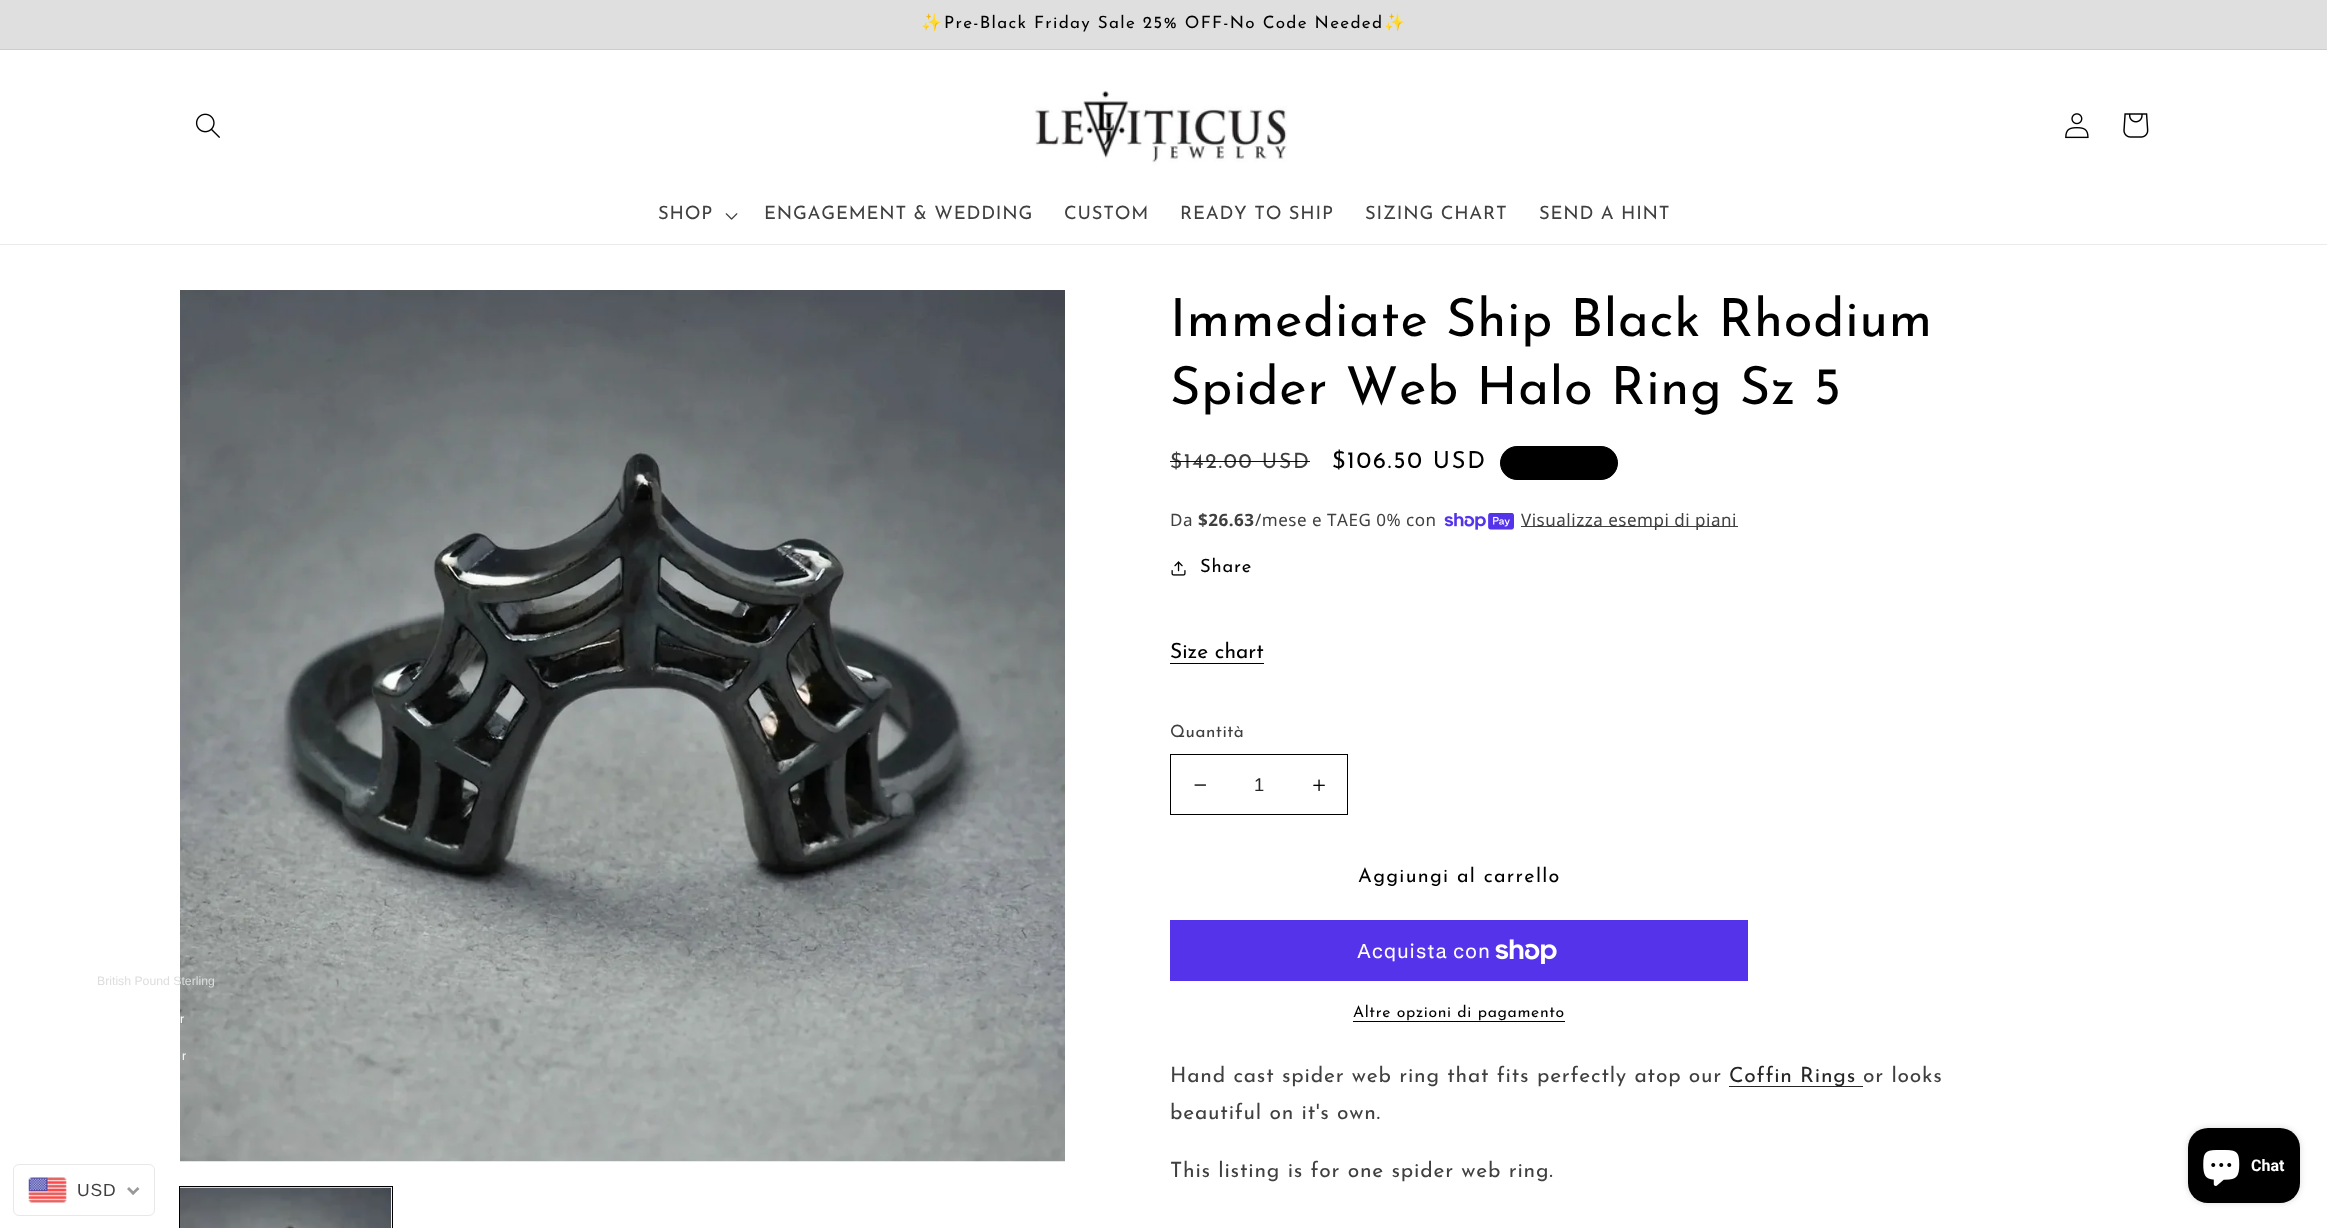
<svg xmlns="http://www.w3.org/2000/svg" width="2327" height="1228">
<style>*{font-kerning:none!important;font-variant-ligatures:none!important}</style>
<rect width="100%" height="100%" fill="#fff"/>
<rect width="2327" height="49" fill="#dfdfdf"/>
<rect y="49" width="2327" height="1" fill="#cdcdcd"/>
<text x="921" y="28" style="font-family:Noto Color Emoji;font-size:17.05px;letter-spacing:1.3px;fill:#000">✨</text>
<text x="944" y="28" style="font-family:Josefin Sans;font-size:17.05px;letter-spacing:1.3px;fill:#000">Pre-Black Friday Sale 25% OFF-No Code Needed</text>
<text x="1384" y="28" style="font-family:Noto Color Emoji;font-size:17.05px;letter-spacing:1.3px;fill:#000">✨</text>
<rect y="244" width="2327" height="1" fill="#ebebeb"/>
<image x="195" y="113" width="25" height="25" href="media/1.png"/>
<image x="1034" y="91" width="253" height="74" href="media/2.png"/>
<image x="2065" y="113" width="24" height="26" href="media/3.png"/>
<image x="2123" y="113" width="26" height="25" href="media/4.png"/>
<text x="658" y="219" style="font-family:Josefin Sans;font-size:18.4px;letter-spacing:0.8px;fill:#404040">SHOP</text>
<image x="725" y="213" width="13" height="7" href="media/5.png"/>
<text x="764" y="219" style="font-family:Josefin Sans;font-size:18.4px;letter-spacing:0.8px;fill:#404040">ENGAGEMENT &amp; WEDDING</text>
<text x="1064" y="219" style="font-family:Josefin Sans;font-size:18.4px;letter-spacing:0.8px;fill:#404040">CUSTOM</text>
<text x="1180" y="219" style="font-family:Josefin Sans;font-size:18.4px;letter-spacing:0.8px;fill:#404040">READY TO SHIP</text>
<text x="1365" y="219" style="font-family:Josefin Sans;font-size:18.4px;letter-spacing:0.8px;fill:#404040">SIZING CHART</text>
<text x="1539" y="219" style="font-family:Josefin Sans;font-size:18.4px;letter-spacing:0.8px;fill:#404040">SEND A HINT</text>
<rect x="13.5" y="1164.5" width="141" height="51" rx="5.5" fill="none" stroke="#e8e8e8"/>
<image x="180" y="290" width="885" height="872" href="media/7.png"/>
<text x="97" y="985" style="font-family:Liberation Sans;font-size:12.25px;fill:#dcdedd">British Pound Sterling</text>
<text x="180" y="1023" style="font-family:Liberation Sans;font-size:12.25px;fill:#fff">r</text>
<text x="182" y="1060" style="font-family:Liberation Sans;font-size:12.25px;fill:#f8f8f8">r</text>
<image x="28" y="1177" width="39" height="26" href="media/6.png"/>
<text x="77" y="1196" style="font-family:Liberation Sans;font-size:17.5px;letter-spacing:0.8px;fill:#404040">USD</text>
<path d="M137.5 1187l2 2l-6.5 6l-1.5-2z" fill="#999"/>
<path d="M129 1187l6 6l-2 2l-6-6z" fill="#999"/>
<rect x="179.5" y="1186.5" width="213" height="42" fill="none" stroke="#000"/>
<image x="180" y="1187" width="212" height="41" href="media/8.png"/>
<text x="1170" y="336" style="font-family:Josefin Sans;font-size:52.5px;letter-spacing:0.8px;fill:#000">Immediate Ship Black Rhodium</text>
<text x="1170" y="404" style="font-family:Josefin Sans;font-size:52.5px;letter-spacing:0.8px;fill:#000">Spider Web Halo Ring Sz 5</text>
<text x="1170" y="468" style="font-family:Josefin Sans;font-size:21px;letter-spacing:1.75px;fill:#404040">$142.00 USD</text>
<rect x="1170" y="461" width="140" height="1" fill="#000000bf"/>
<rect x="1170" y="461" width="140" height="1" fill="#000000bf"/>
<text x="1332" y="468" style="font-family:Josefin Sans;font-size:23.5px;letter-spacing:1.75px;fill:#000">$106.50 USD</text>
<rect x="1500.5" y="446.5" width="117" height="33" rx="16.5" fill="#000" stroke="#000"/>
<text x="1170" y="526" style="font-family:Noto Sans;font-size:17.05px;letter-spacing:0.5px;fill:#404040">Da</text>
<text x="1198" y="526" style="font-family:Noto Sans;font-size:17.05px;font-weight:bold;letter-spacing:0.5px;fill:#404040">$26.63</text>
<text x="1255" y="526" style="font-family:Noto Sans;font-size:17.05px;letter-spacing:0.5px;fill:#404040">/mese e TAEG 0% con</text>
<image x="1444" y="513" width="70" height="17" href="media/9.png"/>
<rect x="1521" y="526" width="217" height="1" fill="#404040"/>
<text x="1521" y="526" style="font-family:Noto Sans;font-size:17.05px;letter-spacing:0.5px;fill:#404040">Visualizza esempi di piani</text>
<image x="1171" y="561" width="15" height="15" href="media/10.png"/>
<text x="1200" y="572" style="font-family:Josefin Sans;font-size:18.4px;letter-spacing:0.8px;fill:#000">Share</text>
<text x="1170" y="658" style="font-family:Josefin Sans;font-size:21px;fill:#000">Size chart</text>
<rect x="1170" y="663" width="94" height="1" fill="#000"/>
<text x="1170" y="737" style="font-family:Josefin Sans;font-size:17.05px;letter-spacing:0.5px;fill:#404040">Quantità</text>
<image x="1194" y="784" width="12" height="2" href="media/11.png"/>
<image x="1313" y="779" width="12" height="12" href="media/12.png"/>
<rect x="1170.5" y="754.5" width="177" height="60" fill="none" stroke="#000"/>
<text x="1254" y="791" style="font-family:Liberation Sans;font-size:18.4px;fill:#262626">1</text>
<text x="1358" y="882" style="font-family:Josefin Sans;font-size:19.75px;letter-spacing:1.3px;fill:#000">Aggiungi al carrello</text>
<rect x="1170" y="920" width="578" height="61" fill="#5433eb"/>
<text x="1357" y="958" style="font-family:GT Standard;font-size:20px;letter-spacing:0.8px;fill:#fff">Acquista con</text>
<image x="1495" y="939" width="62" height="25" href="media/13.png"/>
<text x="1353" y="1017" style="font-family:Josefin Sans;font-size:15.75px;letter-spacing:0.65px;fill:#000">Altre opzioni di pagamento</text>
<rect x="1353" y="1021" width="212" height="1" fill="#000"/>
<text x="1170" y="1082" style="font-family:Josefin Sans;font-size:21px;letter-spacing:0.8px;fill:#404040">Hand cast spider web ring that fits perfectly atop our</text>
<rect x="1729" y="1086" width="134" height="1" fill="#262626"/>
<text x="1729" y="1082" style="font-family:Josefin Sans;font-size:21px;letter-spacing:0.8px;fill:#262626">Coffin Rings</text>
<text x="1863" y="1082" style="font-family:Josefin Sans;font-size:21px;letter-spacing:0.8px;fill:#404040">or looks</text>
<text x="1170" y="1119" style="font-family:Josefin Sans;font-size:21px;letter-spacing:0.8px;fill:#404040">beautiful on it's own.</text>
<text x="1170" y="1177" style="font-family:Josefin Sans;font-size:21px;letter-spacing:0.8px;fill:#404040">This listing is for one spider web ring.</text>
<rect x="2188" y="1128" width="112" height="75" rx="20" fill="#00000026" filter="blur(3px)"/>
<rect x="2188" y="1128" width="112" height="75" rx="20" fill="#000"/>
<image x="2203" y="1150" width="37" height="36" href="media/14.png"/>
<text x="2251" y="1171" style="font-family:Roboto;font-size:16px;font-weight:bold;fill:#fff">Chat</text>
</svg>
